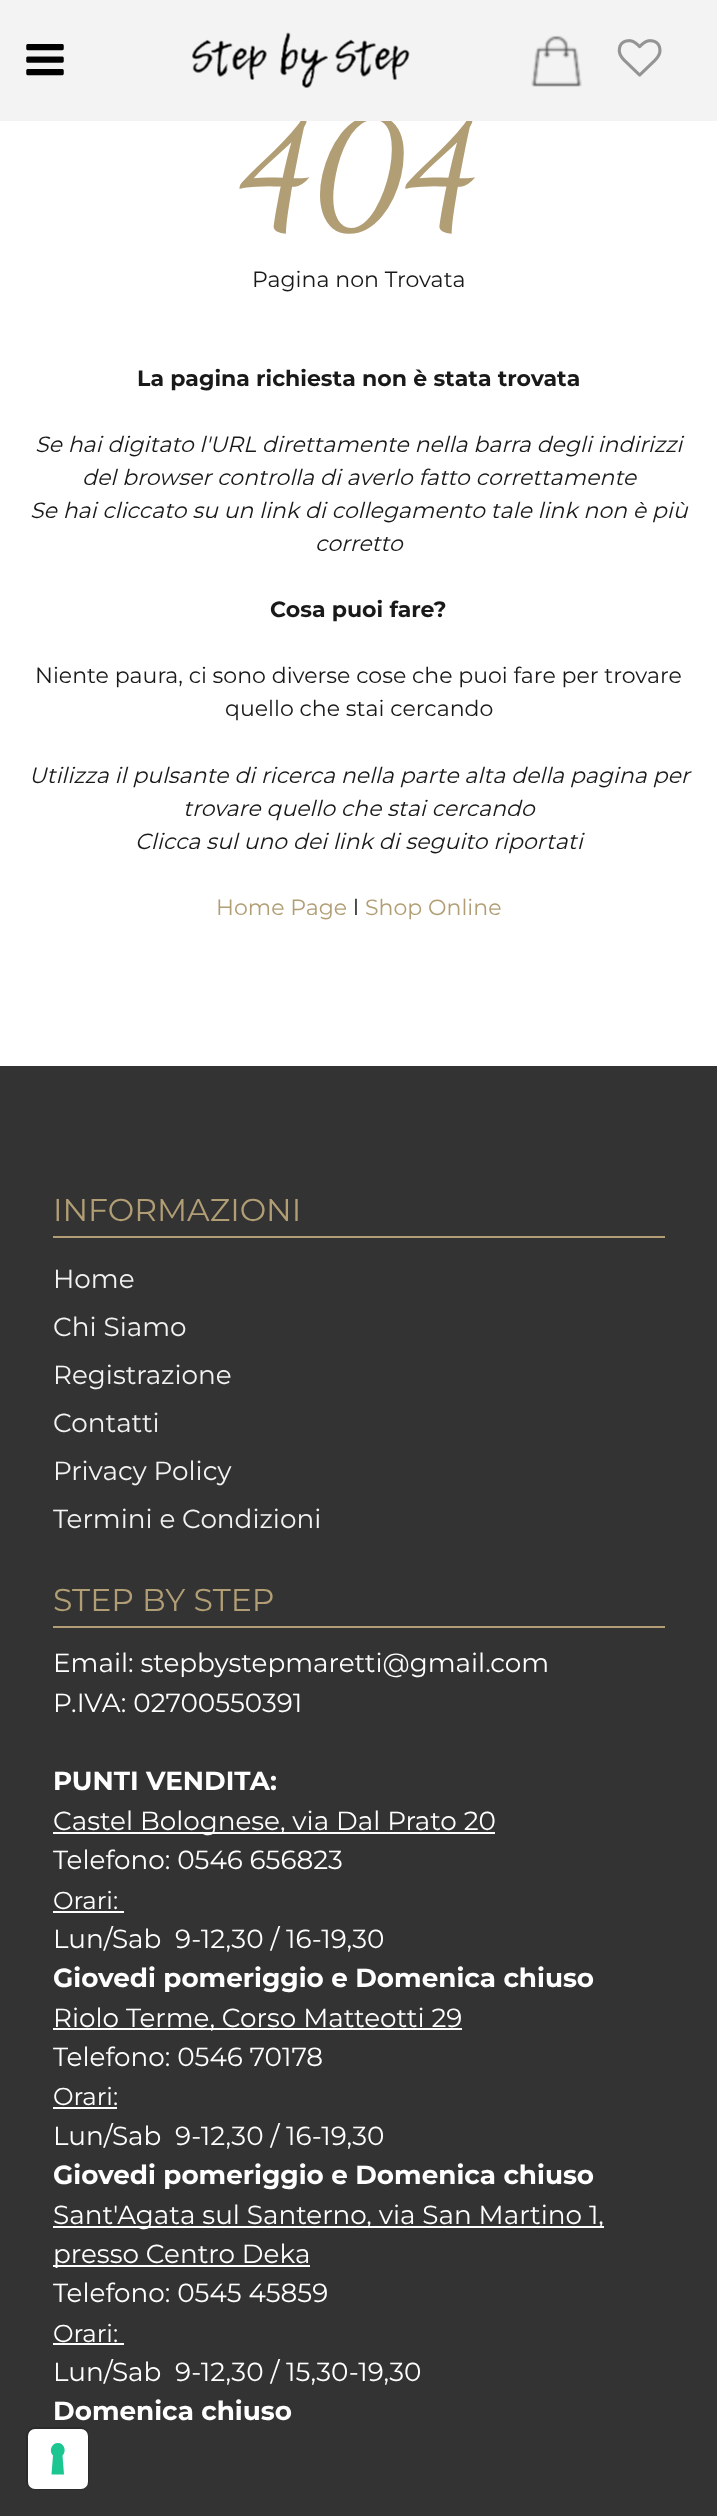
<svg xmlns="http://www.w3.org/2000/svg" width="717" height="2516">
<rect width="100%" height="100%" fill="#fff"/>
<text x="240" y="221" style="font-family:Dancing Script;font-size:147px;font-weight:500;fill:#b19e75">404</text>
<rect width="717" height="121" fill="#f3f3f3"/>
<image x="26" y="44" width="38" height="32" href="media/1.png"/>
<image x="192" y="32" width="218" height="56" href="media/2.png"/>
<image x="531" y="35" width="51" height="52" href="media/3.png"/>
<image x="617" y="39" width="45" height="38" href="media/4.png"/>
<text x="252" y="287" style="font-family:Montserrat;font-size:22.05px;fill:#191919">Pagina non Trovata</text>
<text x="137" y="386" style="font-family:Montserrat;font-size:22.05px;font-weight:bold;fill:#191919">La pagina richiesta non è stata trovata</text>
<text x="35" y="452" style="font-family:Montserrat;font-size:22.05px;font-style:italic;fill:#191919">Se hai digitato l'URL direttamente nella barra degli indirizzi</text>
<text x="82" y="485" style="font-family:Montserrat;font-size:22.05px;font-style:italic;fill:#191919">del browser controlla di averlo fatto correttamente</text>
<text x="30" y="518" style="font-family:Montserrat;font-size:22.05px;font-style:italic;fill:#191919">Se hai cliccato su un link di collegamento tale link non è più</text>
<text x="315" y="551" style="font-family:Montserrat;font-size:22.05px;font-style:italic;fill:#191919">corretto</text>
<text x="270" y="617" style="font-family:Montserrat;font-size:22.05px;font-weight:bold;fill:#191919">Cosa puoi fare?</text>
<text x="35" y="683" style="font-family:Montserrat;font-size:22.05px;fill:#191919">Niente paura, ci sono diverse cose che puoi fare per trovare</text>
<text x="225" y="716" style="font-family:Montserrat;font-size:22.05px;fill:#191919">quello che stai cercando</text>
<text x="29" y="783" style="font-family:Montserrat;font-size:22.05px;font-style:italic;fill:#191919">Utilizza il pulsante di ricerca nella parte alta della pagina per</text>
<text x="183" y="816" style="font-family:Montserrat;font-size:22.05px;font-style:italic;fill:#191919">trovare quello che stai cercando</text>
<text x="135" y="849" style="font-family:Montserrat;font-size:22.05px;font-style:italic;fill:#191919">Clicca sul uno dei link di seguito riportati</text>
<text x="216" y="915" style="font-family:Montserrat;font-size:22.05px;fill:#b19e75">Home Page</text>
<text x="353" y="915" style="font-family:Montserrat;font-size:22.05px;fill:#191919">l</text>
<text x="365" y="915" style="font-family:Montserrat;font-size:22.05px;fill:#b19e75">Shop Online</text>
<rect y="1066" width="717" height="1450" fill="#333"/>
<rect x="53" y="1236" width="612" height="2" fill="#b19e75"/>
<text x="53" y="1221" style="font-family:Montserrat;font-size:31.5px;fill:#b19e75">INFORMAZIONI</text>
<text x="53" y="1288" style="font-family:Montserrat;font-size:26.25px;fill:#f3f3f3">Home</text>
<text x="53" y="1336" style="font-family:Montserrat;font-size:26.25px;fill:#f3f3f3">Chi Siamo</text>
<text x="53" y="1384" style="font-family:Montserrat;font-size:26.25px;fill:#f3f3f3">Registrazione</text>
<text x="53" y="1432" style="font-family:Montserrat;font-size:26.25px;fill:#f3f3f3">Contatti</text>
<text x="53" y="1480" style="font-family:Montserrat;font-size:26.25px;fill:#f3f3f3">Privacy Policy</text>
<text x="53" y="1528" style="font-family:Montserrat;font-size:26.25px;fill:#f3f3f3">Termini e Condizioni</text>
<rect x="53" y="1626" width="612" height="2" fill="#b19e75"/>
<text x="53" y="1611" style="font-family:Montserrat;font-size:31.5px;fill:#b19e75">STEP BY STEP</text>
<text x="53" y="1672" style="font-family:Montserrat;font-size:26.25px;fill:#fff">Email: stepbystepmaretti@gmail.com</text>
<text x="53" y="1712" style="font-family:Montserrat;font-size:26.25px;fill:#fff">P.IVA: 02700550391</text>
<text x="53" y="1790" style="font-family:Montserrat;font-size:26.25px;font-weight:bold;fill:#fff">PUNTI VENDITA:</text>
<rect x="53" y="1832" width="442" height="2" fill="#fff"/>
<text x="53" y="1830" style="font-family:Montserrat;font-size:26.25px;fill:#fff">Castel Bolognese, via Dal Prato 20</text>
<text x="53" y="1869" style="font-family:Montserrat;font-size:26.25px;fill:#fff">Telefono: 0546 656823</text>
<text x="53" y="1909" style="font-family:Montserrat;font-size:24.5px;fill:#fff">Orari:</text>
<rect x="53" y="1911" width="71" height="2" fill="#fff"/>
<text x="53" y="1948" style="font-family:Montserrat;font-size:26.25px;fill:#fff" xml:space="preserve">Lun/Sab  9-12,30 / 16-19,30</text>
<text x="53" y="1987" style="font-family:Montserrat;font-size:26.25px;font-weight:bold;fill:#fff">Giovedi pomeriggio e Domenica chiuso</text>
<rect x="53" y="2028" width="409" height="2" fill="#fff"/>
<text x="53" y="2027" style="font-family:Montserrat;font-size:26.25px;fill:#fff">Riolo Terme, Corso Matteotti 29</text>
<text x="53" y="2066" style="font-family:Montserrat;font-size:26.25px;fill:#fff">Telefono: 0546 70178</text>
<text x="53" y="2105" style="font-family:Montserrat;font-size:24.5px;fill:#fff">Orari:</text>
<rect x="53" y="2107" width="64" height="2" fill="#fff"/>
<text x="53" y="2145" style="font-family:Montserrat;font-size:26.25px;fill:#fff" xml:space="preserve">Lun/Sab  9-12,30 / 16-19,30</text>
<text x="53" y="2184" style="font-family:Montserrat;font-size:26.25px;font-weight:bold;fill:#fff">Giovedi pomeriggio e Domenica chiuso</text>
<rect x="53" y="2226" width="551" height="2" fill="#fff"/>
<text x="53" y="2224" style="font-family:Montserrat;font-size:26.25px;fill:#fff">Sant'Agata sul Santerno, via San Martino 1,</text>
<rect x="53" y="2265" width="257" height="2" fill="#fff"/>
<text x="53" y="2263" style="font-family:Montserrat;font-size:26.25px;fill:#fff">presso Centro Deka</text>
<text x="53" y="2302" style="font-family:Montserrat;font-size:26.25px;fill:#fff">Telefono: 0545 45859</text>
<text x="53" y="2342" style="font-family:Montserrat;font-size:24.5px;fill:#fff">Orari:</text>
<rect x="53" y="2343" width="71" height="2" fill="#fff"/>
<text x="53" y="2381" style="font-family:Montserrat;font-size:26.25px;fill:#fff" xml:space="preserve">Lun/Sab  9-12,30 / 15,30-19,30</text>
<text x="53" y="2420" style="font-family:Montserrat;font-size:26.25px;font-weight:bold;fill:#fff">Domenica chiuso</text>
<rect x="27" y="2428" width="61" height="61" rx="8" fill="none" stroke="#2b2b2b" stroke-width="2"/>
<rect x="28" y="2429" width="60" height="60" rx="7" fill="#fff"/>
<path d="M58 2443c6 0 9 8 4.5 12.5l1.5 19h-12.5l1.5-19c-4.5-4.5-1.5-12.5 5-12.5z" fill="#1cc691" fill-rule="evenodd"/>
</svg>
